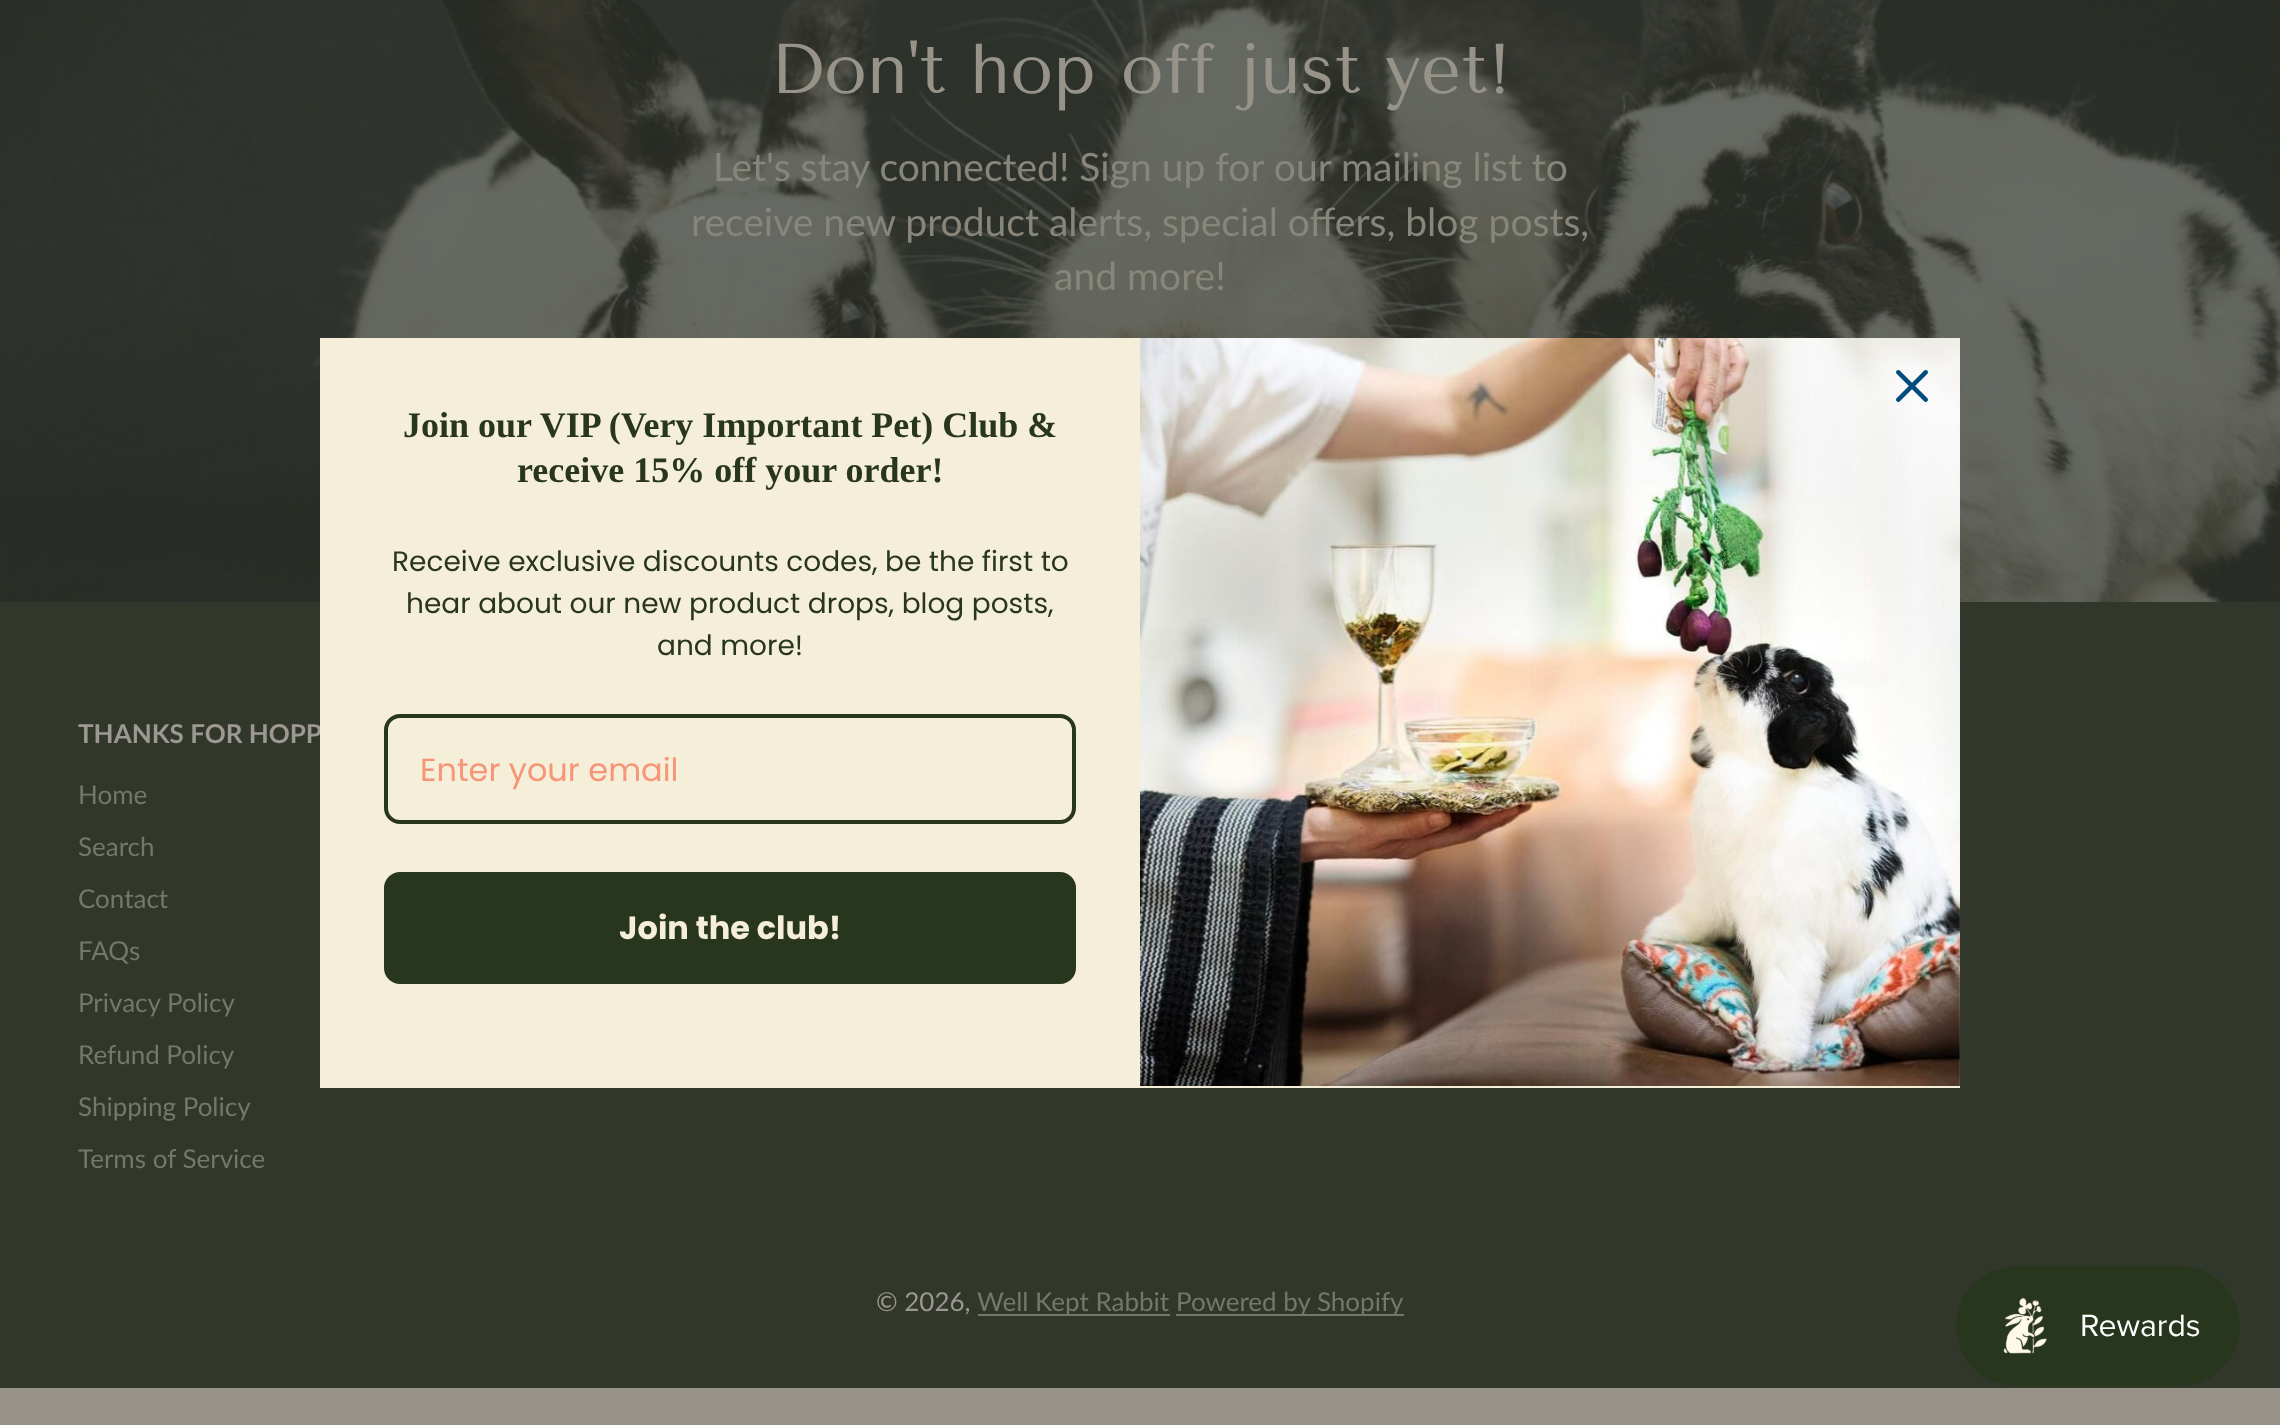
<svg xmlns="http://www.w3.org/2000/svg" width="2280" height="1425">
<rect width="100%" height="100%" fill="#979388"/>
<image x="0" y="0" width="2280" height="602" href="media/1.png"/>
<text x="770" y="93" style="font-family:Tenor Sans;font-size:70.25px;fill:#979388">Don't hop off just yet!</text>
<text x="713" y="181" style="font-family:Lato;font-size:39px;fill:#88867b">Let's stay connected! Sign up for our mailing list to</text>
<text x="691" y="236" style="font-family:Lato;font-size:39px;fill:#88867b">receive new product alerts, special offers, blog posts,</text>
<text x="1054" y="290" style="font-family:Lato;font-size:39px;fill:#88867b">and more!</text>
<rect y="602" width="2280" height="786" fill="#32372c"/>
<text x="78" y="743" style="font-family:Lato;font-size:26px;font-weight:bold;fill:#9b9991">THANKS FOR HOPP</text>
<rect x="320" y="338" width="1640" height="750" fill="#f5eed8"/>
<image x="1140" y="338" width="820" height="748" href="media/3.png"/>
<image x="1896" y="370" width="32" height="32" href="media/2.png"/>
<text x="403" y="437" style="font-family:Liberation Serif;font-size:36px;font-weight:bold;fill:#29361e">Join our VIP (Very Important Pet) Club &amp;</text>
<text x="517" y="482" style="font-family:Liberation Serif;font-size:36px;font-weight:bold;fill:#29361e">receive 15% off your order!</text>
<text x="392" y="571" style="font-family:Poppins;font-size:28px;fill:#29361e">Receive exclusive discounts codes, be the first to</text>
<text x="406" y="613" style="font-family:Poppins;font-size:28px;fill:#29361e">hear about our new product drops, blog posts,</text>
<text x="657" y="655" style="font-family:Poppins;font-size:28px;fill:#29361e">and more!</text>
<rect x="386" y="716" width="688" height="106" rx="14" fill="none" stroke="#29361e" stroke-width="4"/>
<text x="420" y="781" style="font-family:Poppins;font-size:32px;fill:#f69577">Enter your email</text>
<rect x="386" y="874" width="688" height="108" rx="14" fill="#29361e" stroke="#29361e" stroke-width="4"/>
<text x="619" y="939" style="font-family:Poppins;font-size:32px;font-weight:bold;fill:#f5eed8">Join the club!</text>
<text x="78" y="804" style="font-family:Lato;font-size:26px;fill:#75766c">Home</text>
<text x="78" y="856" style="font-family:Lato;font-size:26px;fill:#75766c">Search</text>
<text x="78" y="908" style="font-family:Lato;font-size:26px;fill:#75766c">Contact</text>
<text x="78" y="960" style="font-family:Lato;font-size:26px;fill:#75766c">FAQs</text>
<text x="78" y="1012" style="font-family:Lato;font-size:26px;fill:#75766c">Privacy Policy</text>
<text x="78" y="1064" style="font-family:Lato;font-size:26px;fill:#75766c">Refund Policy</text>
<text x="78" y="1116" style="font-family:Lato;font-size:26px;fill:#75766c">Shipping Policy</text>
<text x="78" y="1168" style="font-family:Lato;font-size:26px;fill:#75766c">Terms of Service</text>
<text x="876" y="1311" style="font-family:Lato;font-size:26px;fill:#9b9991">© 2026,</text>
<rect x="978" y="1314" width="192" height="2" fill="#75766c"/>
<text x="977" y="1311" style="font-family:Lato;font-size:26px;fill:#75766c">Well Kept Rabbit</text>
<rect x="1176" y="1314" width="228" height="2" fill="#75766c"/>
<text x="1176" y="1311" style="font-family:Lato;font-size:26px;fill:#75766c">Powered by Shopify</text>
<image x="1956" y="1266" width="284" height="120" href="media/4.png"/>
</svg>
